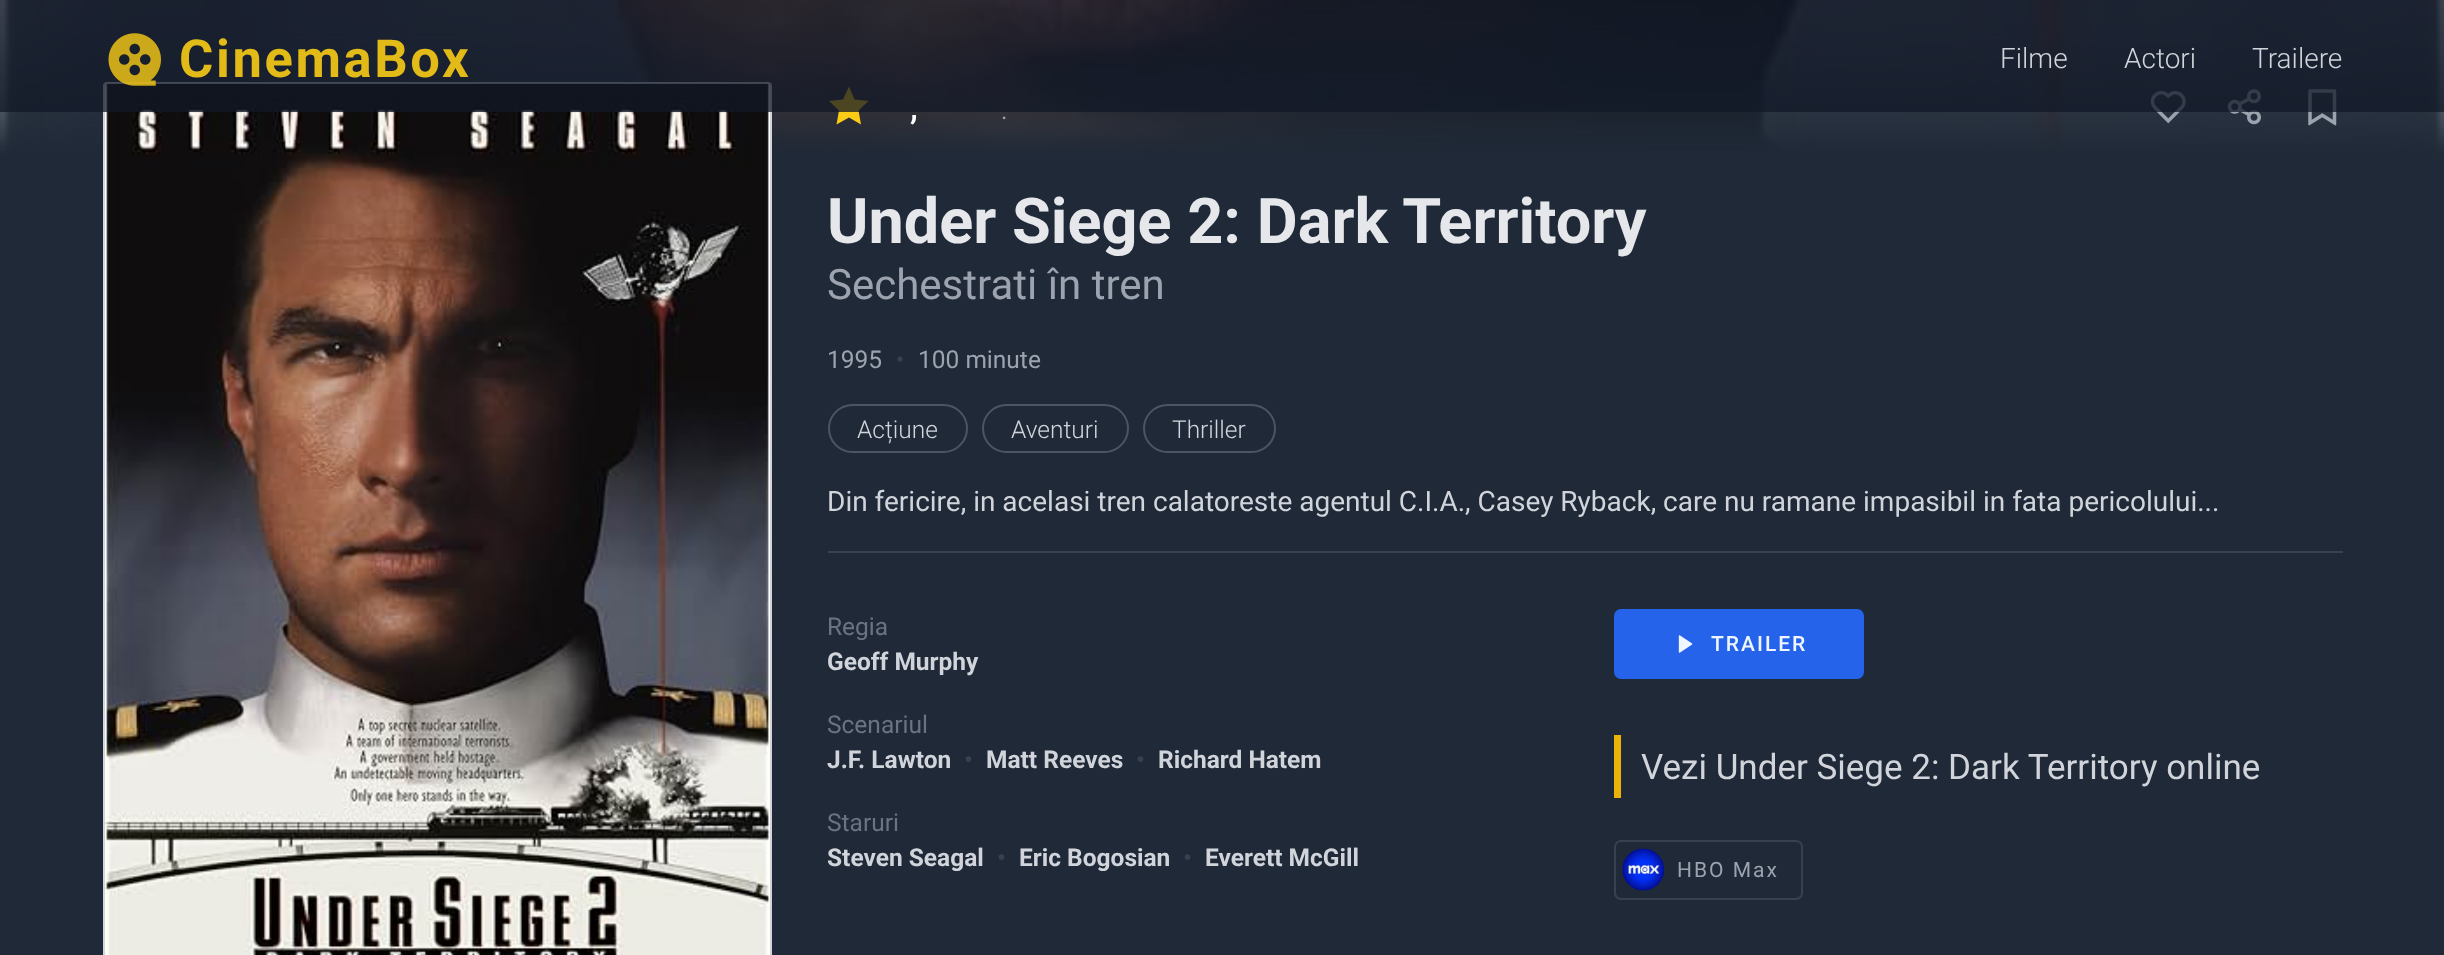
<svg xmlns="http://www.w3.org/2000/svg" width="2444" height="955">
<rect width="100%" height="100%" fill="#1f2937"/>
<image x="0" y="0" width="2444" height="180" href="media/2.png"/>
<rect x="104" y="83" width="667" height="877" rx="3" fill="none" stroke="#d1d5db" stroke-width="2"/>
<image x="105" y="83" width="665" height="872" href="media/3.png"/>
<path d="M849 117.5l-12.5 7l2.5-14l-10-9.5l14-1.5l6-13l5.5 13l14 1.5l-10 9.5l2.5 14z" fill="#facc15"/>
<image x="2150" y="91" width="36" height="33" href="media/4.png"/>
<image x="2227" y="89" width="34" height="36" href="media/5.png"/>
<image x="2308" y="89" width="29" height="37" href="media/6.png"/>
<rect width="2444" height="112" fill="#111827bf"/>
<image x="108" y="33" width="53" height="53" href="media/1.png"/>
<text x="179" y="77" style="font-family:Roboto;font-size:52.5px;font-weight:bold;letter-spacing:2.6px;fill:#e3bb18">CinemaBox</text>
<text x="2000" y="68" style="font-family:Roboto;font-size:28px;font-weight:300;fill:#d1d5db">Filme</text>
<text x="2124" y="68" style="font-family:Roboto;font-size:28px;font-weight:300;fill:#d1d5db">Actori</text>
<text x="2252" y="68" style="font-family:Roboto;font-size:28px;font-weight:300;fill:#d1d5db">Trailere</text>
<text x="910" y="119" style="font-family:Roboto;font-size:35px;font-weight:500;fill:#fff">,</text>
<text x="1001" y="119" style="font-family:Roboto;font-size:24.5px;fill:#9ca3af">.</text>
<text x="827" y="243" style="font-family:Roboto;font-size:63px;font-weight:bold;fill:#e5e7eb">Under Siege 2: Dark Territory</text>
<text x="827" y="299" style="font-family:Roboto;font-size:42px;fill:#9ca3af">Sechestrati în tren</text>
<text x="827" y="368" style="font-family:Roboto;font-size:24.5px;fill:#9ca3af">1995</text>
<text x="896" y="368" style="font-family:Roboto;font-size:24.5px;fill:#374151">•</text>
<text x="918" y="368" style="font-family:Roboto;font-size:24.5px;fill:#9ca3af">100 minute</text>
<rect x="829" y="405" width="138" height="47" rx="23.5" fill="none" stroke="#4b5563" stroke-width="2"/>
<text x="857" y="438" style="font-family:Roboto;font-size:24.5px;font-weight:300;fill:#d1d5db">Acțiune</text>
<rect x="983" y="405" width="145" height="47" rx="23.5" fill="none" stroke="#4b5563" stroke-width="2"/>
<text x="1011" y="438" style="font-family:Roboto;font-size:24.5px;font-weight:300;fill:#d1d5db">Aventuri</text>
<rect x="1144" y="405" width="131" height="47" rx="23.5" fill="none" stroke="#4b5563" stroke-width="2"/>
<text x="1172" y="438" style="font-family:Roboto;font-size:24.5px;font-weight:300;fill:#d1d5db">Thriller</text>
<text x="827" y="511" style="font-family:Roboto;font-size:28px;fill:#d1d5db">Din fericire, in acelasi tren calatoreste agentul C.I.A., Casey Ryback, care nu ramane impasibil in fata pericolului...</text>
<rect x="828" y="551" width="1515" height="2" fill="#374151"/>
<text x="827" y="635" style="font-family:Roboto;font-size:24.5px;fill:#6b7280">Regia</text>
<text x="827" y="670" style="font-family:Roboto;font-size:24.5px;font-weight:bold;fill:#d1d5db">Geoff Murphy</text>
<text x="827" y="733" style="font-family:Roboto;font-size:24.5px;fill:#6b7280">Scenariul</text>
<text x="827" y="768" style="font-family:Roboto;font-size:24.5px;font-weight:bold;fill:#d1d5db">J.F. Lawton</text>
<text x="964" y="768" style="font-family:Roboto;font-size:24.5px;font-weight:bold;fill:#374151">•</text>
<text x="986" y="768" style="font-family:Roboto;font-size:24.5px;font-weight:bold;fill:#d1d5db">Matt Reeves</text>
<text x="1136" y="768" style="font-family:Roboto;font-size:24.5px;font-weight:bold;fill:#374151">•</text>
<text x="1158" y="768" style="font-family:Roboto;font-size:24.5px;font-weight:bold;fill:#d1d5db">Richard Hatem</text>
<text x="827" y="831" style="font-family:Roboto;font-size:24.5px;fill:#6b7280">Staruri</text>
<text x="827" y="866" style="font-family:Roboto;font-size:24.5px;font-weight:bold;fill:#d1d5db">Steven Seagal</text>
<text x="997" y="866" style="font-family:Roboto;font-size:24.5px;font-weight:bold;fill:#374151">•</text>
<text x="1019" y="866" style="font-family:Roboto;font-size:24.5px;font-weight:bold;fill:#d1d5db">Eric Bogosian</text>
<text x="1183" y="866" style="font-family:Roboto;font-size:24.5px;font-weight:bold;fill:#374151">•</text>
<text x="1205" y="866" style="font-family:Roboto;font-size:24.5px;font-weight:bold;fill:#d1d5db">Everett McGill</text>
<rect x="1614" y="609" width="250" height="70" rx="7" fill="#2563eb"/>
<image x="1678" y="635" width="15" height="18" href="media/7.png"/>
<text x="1711" y="651" style="font-family:Roboto;font-size:21px;font-weight:500;letter-spacing:2px;fill:#eff6ff">TRAILER</text>
<rect x="1614" y="735" width="7" height="63" fill="#eab308"/>
<text x="1641" y="779" style="font-family:Roboto;font-size:35px;fill:#d1d5db">Vezi Under Siege 2: Dark Territory online</text>
<rect x="1615" y="841" width="187" height="58" rx="6" fill="none" stroke="#374151" stroke-width="2"/>
<image x="1622" y="848" width="43" height="43" href="media/8.png"/>
<text x="1677" y="877" style="font-family:Roboto;font-size:21px;letter-spacing:2px;fill:#9ca3af">HBO Max</text>
</svg>
